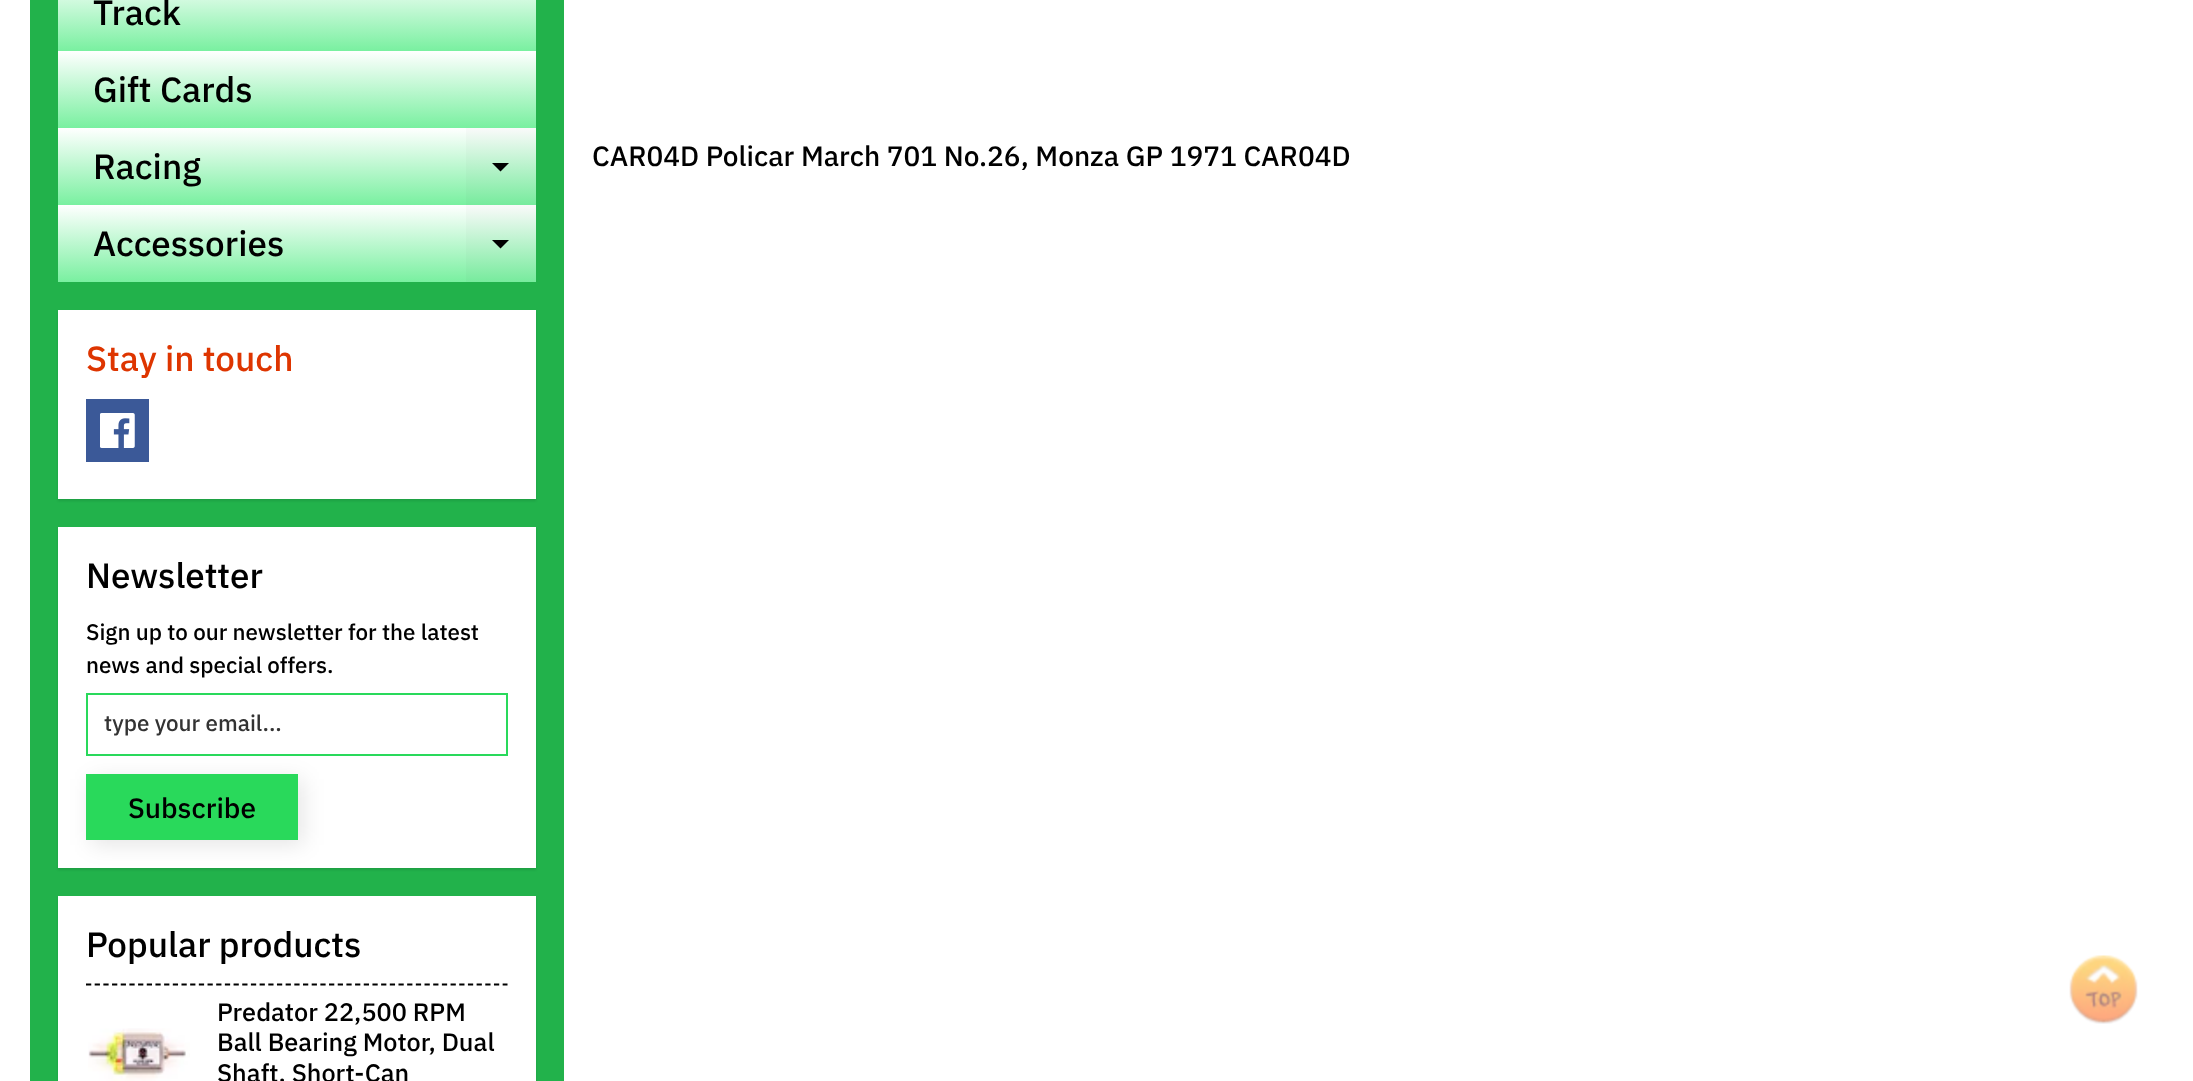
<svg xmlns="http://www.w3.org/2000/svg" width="2193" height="1081">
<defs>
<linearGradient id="g1" gradientUnits="userSpaceOnUse" x1="297" y1="-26" x2="297" y2="51"><stop offset="0" stop-color="#fff"/><stop offset="1" stop-color="#79f0a0"/></linearGradient>
<linearGradient id="g2" gradientUnits="userSpaceOnUse" x1="297" y1="51" x2="297" y2="128"><stop offset="0" stop-color="#fff"/><stop offset="1" stop-color="#79f0a0"/></linearGradient>
<linearGradient id="g3" gradientUnits="userSpaceOnUse" x1="297" y1="128" x2="297" y2="205"><stop offset="0" stop-color="#fff"/><stop offset="1" stop-color="#79f0a0"/></linearGradient>
<linearGradient id="g4" gradientUnits="userSpaceOnUse" x1="297" y1="128" x2="297" y2="205"><stop offset="0" stop-color="#fafafa"/><stop offset="1" stop-color="#77eb9d"/></linearGradient>
<linearGradient id="g5" gradientUnits="userSpaceOnUse" x1="297" y1="205" x2="297" y2="282"><stop offset="0" stop-color="#fff"/><stop offset="1" stop-color="#79f0a0"/></linearGradient>
<linearGradient id="g6" gradientUnits="userSpaceOnUse" x1="297" y1="205" x2="297" y2="282"><stop offset="0" stop-color="#fafafa"/><stop offset="1" stop-color="#77eb9d"/></linearGradient>
</defs>
<rect width="100%" height="100%" fill="#fff"/>
<rect x="30" width="534" height="1081" fill="#22b24b"/>
<rect x="58" width="478" height="51" fill="url(#g1)"/>
<text x="93" y="25" style="font-family:IBM Plex Sans;font-size:35px;font-weight:500;fill:#000">Track</text>
<rect x="58" y="51" width="478" height="77" fill="url(#g2)"/>
<text x="93" y="102" style="font-family:IBM Plex Sans;font-size:35px;font-weight:500;fill:#000">Gift Cards</text>
<rect x="58" y="128" width="408" height="77" fill="url(#g3)"/>
<rect x="466" y="128" width="70" height="77" fill="url(#g4)"/>
<text x="93" y="179" style="font-family:IBM Plex Sans;font-size:35px;font-weight:500;fill:#000">Racing</text>
<path d="M492 163h17l-8.5 8.5z" fill="#000"/>
<rect x="58" y="205" width="408" height="77" fill="url(#g5)"/>
<rect x="466" y="205" width="70" height="77" fill="url(#g6)"/>
<text x="93" y="256" style="font-family:IBM Plex Sans;font-size:35px;font-weight:500;fill:#000">Accessories</text>
<path d="M492 240h17l-8.5 8.5z" fill="#000"/>
<rect x="58" y="312" width="478" height="189" fill="#0000001a" filter="blur(1px)"/>
<rect x="58" y="310" width="478" height="189" fill="#fff"/>
<text x="86" y="371" style="font-family:IBM Plex Sans;font-size:35px;font-weight:500;fill:#de3500">Stay in touch</text>
<rect x="86" y="399" width="63" height="63" fill="#3b5998"/>
<image x="100" y="413" width="35" height="35" href="media/1.png"/>
<rect x="58" y="529" width="478" height="341" fill="#0000001a" filter="blur(1px)"/>
<rect x="58" y="527" width="478" height="341" fill="#fff"/>
<text x="86" y="588" style="font-family:IBM Plex Sans;font-size:35px;font-weight:500;fill:#000">Newsletter</text>
<text x="86" y="640" style="font-family:IBM Plex Sans;font-size:22.4px;font-weight:500;fill:#000">Sign up to our newsletter for the latest</text>
<text x="86" y="673" style="font-family:IBM Plex Sans;font-size:22.4px;font-weight:500;fill:#000">news and special offers.</text>
<rect x="87" y="694" width="420" height="61" fill="none" stroke="#29d95b" stroke-width="2"/>
<text x="104" y="731" style="font-family:IBM Plex Sans;font-size:22.4px;font-weight:500;fill:#333">type your email...</text>
<rect x="91" y="779" width="212" height="66" fill="#0000001a" filter="blur(10.5px)"/>
<rect x="86" y="774" width="212" height="66" fill="#29d95b"/>
<text x="128" y="818" style="font-family:IBM Plex Sans;font-size:28px;font-weight:500;fill:#000">Subscribe</text>
<rect x="58" y="898" width="478" height="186" fill="#0000001a" filter="blur(1px)"/>
<rect x="58" y="896" width="478" height="185" fill="#fff"/>
<text x="86" y="957" style="font-family:IBM Plex Sans;font-size:35px;font-weight:500;fill:#000">Popular products</text>
<path d="M86 984.5h421.5" fill="none" stroke="#000" stroke-width="1.8" stroke-dasharray="5.25 3.43"/>
<image x="88" y="1028" width="102" height="53" href="media/2.png"/>
<text x="217" y="1021" style="font-family:IBM Plex Sans;font-size:25.25px;font-weight:500;fill:#000">Predator 22,500 RPM</text>
<text x="217" y="1051" style="font-family:IBM Plex Sans;font-size:25.25px;font-weight:500;fill:#000">Ball Bearing Motor, Dual</text>
<text x="217" y="1082" style="font-family:IBM Plex Sans;font-size:25.25px;font-weight:500;fill:#000">Shaft, Short-Can</text>
<text x="592" y="166" style="font-family:IBM Plex Sans;font-size:28px;font-weight:500;fill:#000">CAR04D Policar March 701 No.26, Monza GP 1971 CAR04D</text>
<image x="2069" y="955" width="69" height="69" href="media/3.png"/>
</svg>
